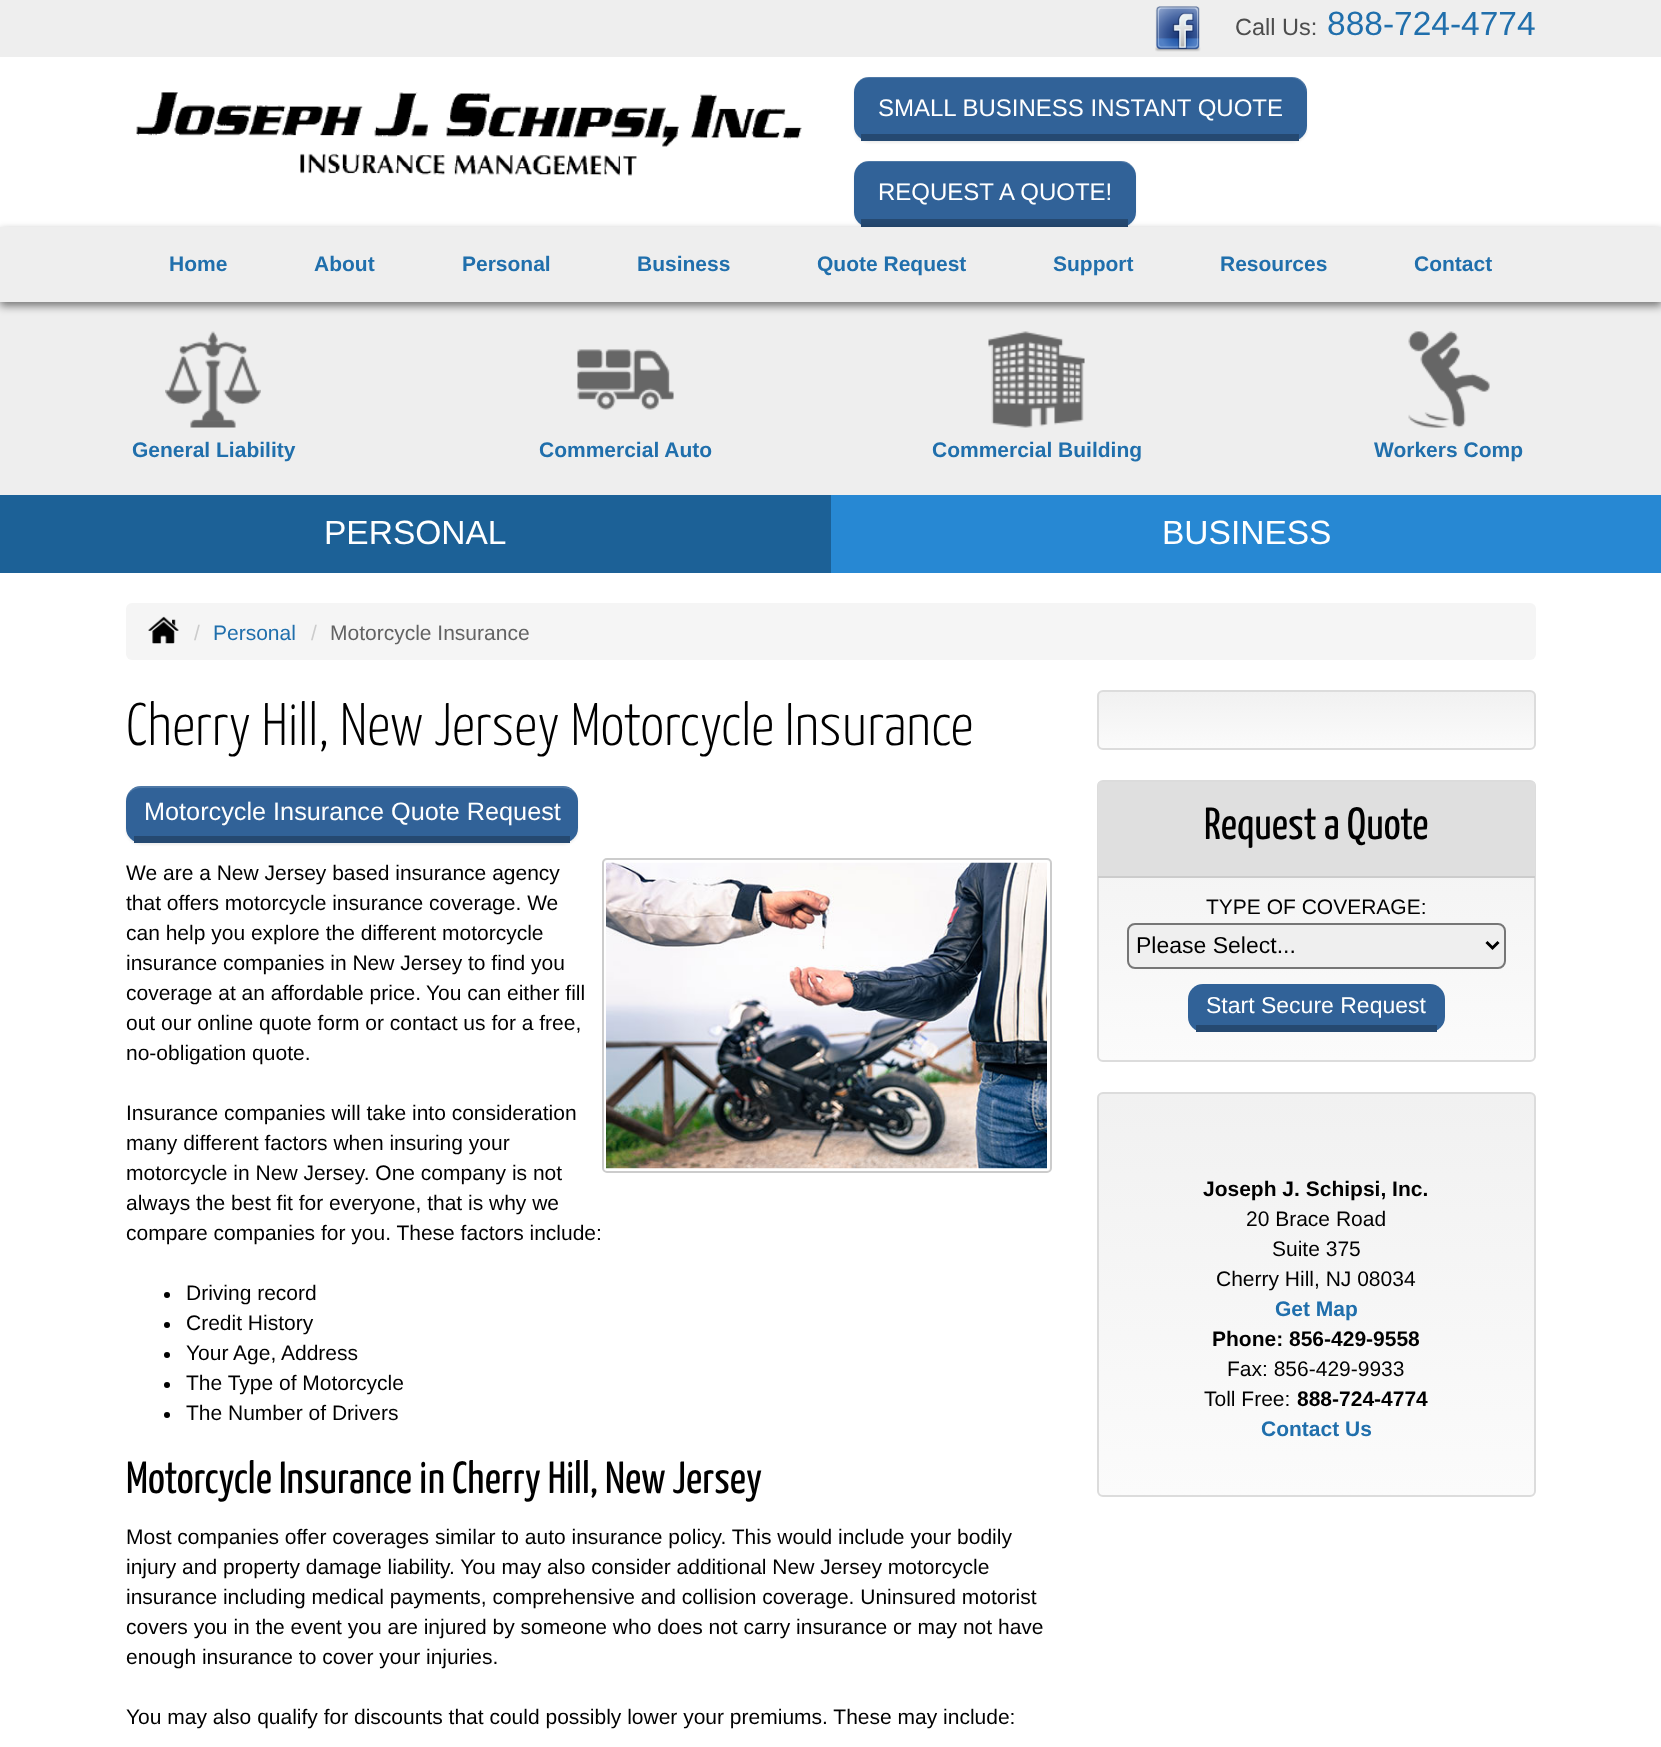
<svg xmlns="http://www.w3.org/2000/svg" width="1661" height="1747">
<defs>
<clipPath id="clip1"><rect x="1097" y="690" width="439" height="60" rx="6"/></clipPath>
<linearGradient id="g1" gradientUnits="userSpaceOnUse" x1="1316" y1="692" x2="1316" y2="749"><stop offset="0" stop-color="#f1f1f1"/><stop offset="1" stop-color="#fbfbfb"/></linearGradient>
<clipPath id="clip2"><rect x="1097" y="780" width="439" height="282" rx="6"/></clipPath>
<linearGradient id="g2" gradientUnits="userSpaceOnUse" x1="1316" y1="782" x2="1316" y2="1061"><stop offset="0" stop-color="#f1f1f1"/><stop offset="1" stop-color="#fbfbfb"/></linearGradient>
<clipPath id="clip3"><rect x="1097" y="1092" width="439" height="405" rx="6"/></clipPath>
<linearGradient id="g3" gradientUnits="userSpaceOnUse" x1="1316" y1="1094" x2="1316" y2="1496"><stop offset="0" stop-color="#f1f1f1"/><stop offset="1" stop-color="#fbfbfb"/></linearGradient>
</defs>
<rect width="100%" height="100%" fill="#fff"/>
<rect width="1661" height="57" fill="#eee"/>
<image x="1155" y="6" width="46" height="46" href="media/1.png"/>
<text x="1235" y="35" style="font-family:Liberation Sans;font-size:23.5px;fill:#4d4d4d">Call Us:</text>
<text x="1327" y="35" style="font-family:Liberation Sans;font-size:33.5px;fill:#206fac">888-724-4774</text>
<image x="136" y="92" width="666" height="84" href="media/2.png"/>
<rect x="854" y="78" width="453" height="65" rx="15" fill="#00000012" filter="blur(1px)"/>
<rect x="854" y="77" width="453" height="64" rx="15" fill="#316298"/>
<path d="M868 78h424c8 0 14 7 14 15v35v-2v-34c0-9-6-16-14-16h-424c-8 0-14 7-14 16v34v2v-35c0-8 6-15 14-15z" fill="#ffffff26"/>
<rect x="861" y="134" width="438" height="7" fill="#254971"/>
<text x="878" y="116" style="font-family:Liberation Sans;font-size:24px;fill:#fff">SMALL BUSINESS INSTANT QUOTE</text>
<rect x="854" y="162" width="282" height="66" rx="15" fill="#00000012" filter="blur(1px)"/>
<rect x="854" y="161" width="282" height="66" rx="15" fill="#316298"/>
<path d="M868 162h252c7 0 13 4 15 10c-1-7-7-12-15-12h-252c-8 0-14 7-14 16v36v1v-18c0-11-3-33 14-33z" fill="#ffffff26"/>
<rect x="861" y="219" width="267" height="8" fill="#254971"/>
<text x="878" y="200" style="font-family:Liberation Sans;font-size:24px;fill:#fff">REQUEST A QUOTE!</text>
<rect y="302" width="1661" height="193" fill="#eee"/>
<rect y="231" width="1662" height="75" fill="#00000080" filter="blur(4.5px)"/>
<rect y="227" width="1661" height="75" fill="#eee"/>
<text x="169" y="271" style="font-family:Liberation Sans;font-size:21px;font-weight:bold;fill:#206fac">Home</text>
<text x="314" y="271" style="font-family:Liberation Sans;font-size:21px;font-weight:bold;fill:#206fac">About</text>
<text x="462" y="271" style="font-family:Liberation Sans;font-size:21px;font-weight:bold;fill:#206fac">Personal</text>
<text x="637" y="271" style="font-family:Liberation Sans;font-size:21px;font-weight:bold;fill:#206fac">Business</text>
<text x="817" y="271" style="font-family:Liberation Sans;font-size:21px;font-weight:bold;fill:#206fac">Quote Request</text>
<text x="1053" y="271" style="font-family:Liberation Sans;font-size:21px;font-weight:bold;fill:#206fac">Support</text>
<text x="1220" y="271" style="font-family:Liberation Sans;font-size:21px;font-weight:bold;fill:#206fac">Resources</text>
<text x="1414" y="271" style="font-family:Liberation Sans;font-size:21px;font-weight:bold;fill:#206fac">Contact</text>
<image x="165" y="331" width="96" height="97" href="media/3.png"/>
<text x="132" y="457" style="font-family:Liberation Sans;font-size:21px;font-weight:bold;fill:#206fac">General Liability</text>
<image x="577" y="349" width="97" height="61" href="media/4.png"/>
<text x="539" y="457" style="font-family:Liberation Sans;font-size:21px;font-weight:bold;fill:#206fac">Commercial Auto</text>
<image x="988" y="331" width="97" height="97" href="media/5.png"/>
<text x="932" y="457" style="font-family:Liberation Sans;font-size:21px;font-weight:bold;fill:#206fac">Commercial Building</text>
<image x="1408" y="331" width="82" height="97" href="media/6.png"/>
<text x="1374" y="457" style="font-family:Liberation Sans;font-size:21px;font-weight:bold;fill:#206fac">Workers Comp</text>
<rect y="495" width="831" height="78" fill="#1c6197"/>
<text x="324" y="544" style="font-family:Liberation Sans;font-size:33.5px;fill:#fff">PERSONAL</text>
<rect x="831" y="495" width="830" height="78" fill="#2788d3"/>
<text x="1162" y="544" style="font-family:Liberation Sans;font-size:33.5px;fill:#fff">BUSINESS</text>
<rect x="126" y="603" width="1410" height="57" rx="6" fill="#f5f5f5"/>
<image x="148" y="616" width="31" height="28" href="media/7.png"/>
<text x="194" y="640" style="font-family:Liberation Sans;font-size:21px;fill:#ccc">/</text>
<text x="213" y="640" style="font-family:Liberation Sans;font-size:21px;fill:#206fac">Personal</text>
<text x="311" y="640" style="font-family:Liberation Sans;font-size:21px;fill:#ccc">/</text>
<text x="330" y="640" style="font-family:Liberation Sans;font-size:21px;fill:#636363">Motorcycle Insurance</text>
<text x="126" y="745" style="font-family:Yanone Kaffeesatz;font-size:60px;font-weight:300;fill:#000">Cherry Hill, New Jersey Motorcycle Insurance</text>
<rect x="126" y="788" width="452" height="57" rx="15" fill="#00000012" filter="blur(1px)"/>
<rect x="126" y="786" width="452" height="57" rx="15" fill="#316298"/>
<path d="M141 788h421c7 0 13 3 15 9c-2-7-8-11-15-11h-421c-8 0-15 7-15 15v1c0-8 7-14 15-14z" fill="#ffffff26"/>
<rect x="134" y="836" width="436" height="7" fill="#254971"/>
<text x="144" y="820" style="font-family:Liberation Sans;font-size:25.25px;fill:#fff">Motorcycle Insurance Quote Request</text>
<text x="126" y="880" style="font-family:Liberation Sans;font-size:21px;fill:#000">We are a New Jersey based insurance agency</text>
<text x="126" y="910" style="font-family:Liberation Sans;font-size:21px;fill:#000">that offers motorcycle insurance coverage. We</text>
<text x="126" y="940" style="font-family:Liberation Sans;font-size:21px;fill:#000">can help you explore the different motorcycle</text>
<text x="126" y="970" style="font-family:Liberation Sans;font-size:21px;fill:#000">insurance companies in New Jersey to find you</text>
<text x="126" y="1000" style="font-family:Liberation Sans;font-size:21px;fill:#000">coverage at an affordable price.</text>
<text x="426" y="1000" style="font-family:Liberation Sans;font-size:21px;fill:#000">You can either fill</text>
<text x="126" y="1030" style="font-family:Liberation Sans;font-size:21px;fill:#000">out our online quote form or contact us for a free,</text>
<text x="126" y="1060" style="font-family:Liberation Sans;font-size:21px;fill:#000">no-obligation quote.</text>
<rect x="603" y="859" width="448" height="313" rx="4" fill="none" stroke="#ccc" stroke-width="2"/>
<image x="606" y="862" width="441" height="307" href="media/8.png"/>
<text x="126" y="1120" style="font-family:Liberation Sans;font-size:21px;fill:#000">Insurance companies will take into consideration</text>
<text x="126" y="1150" style="font-family:Liberation Sans;font-size:21px;fill:#000">many different factors when insuring your</text>
<text x="126" y="1180" style="font-family:Liberation Sans;font-size:21px;fill:#000">motorcycle in New Jersey. One company is not</text>
<text x="126" y="1210" style="font-family:Liberation Sans;font-size:21px;fill:#000">always the best fit for everyone, that is why we</text>
<text x="126" y="1240" style="font-family:Liberation Sans;font-size:21px;fill:#000">compare companies for you. These factors include:</text>
<circle cx="167" cy="1295" r="3" fill="#000"/>
<text x="186" y="1300" style="font-family:Liberation Sans;font-size:21px;fill:#000">Driving record</text>
<circle cx="167" cy="1325" r="3" fill="#000"/>
<text x="186" y="1330" style="font-family:Liberation Sans;font-size:21px;fill:#000">Credit History</text>
<circle cx="167" cy="1355" r="3" fill="#000"/>
<text x="186" y="1360" style="font-family:Liberation Sans;font-size:21px;fill:#000">Your Age, Address</text>
<circle cx="167" cy="1385" r="3" fill="#000"/>
<text x="186" y="1390" style="font-family:Liberation Sans;font-size:21px;fill:#000">The Type of Motorcycle</text>
<circle cx="167" cy="1415" r="3" fill="#000"/>
<text x="186" y="1420" style="font-family:Liberation Sans;font-size:21px;fill:#000">The Number of Drivers</text>
<text x="126" y="1493" style="font-family:Yanone Kaffeesatz;font-size:45px;fill:#000">Motorcycle Insurance in Cherry Hill, New Jersey</text>
<text x="126" y="1544" style="font-family:Liberation Sans;font-size:21px;fill:#000">Most companies offer coverages similar to auto insurance policy. This would include your bodily</text>
<text x="126" y="1574" style="font-family:Liberation Sans;font-size:21px;fill:#000">injury and property damage liability. You may also consider additional New Jersey motorcycle</text>
<text x="126" y="1604" style="font-family:Liberation Sans;font-size:21px;fill:#000">insurance including medical payments, comprehensive and collision coverage. Uninsured motorist</text>
<text x="126" y="1634" style="font-family:Liberation Sans;font-size:21px;fill:#000">covers you in the event you are injured by someone who does not carry insurance or may not have</text>
<text x="126" y="1664" style="font-family:Liberation Sans;font-size:21px;fill:#000">enough insurance to cover your injuries.</text>
<text x="126" y="1724" style="font-family:Liberation Sans;font-size:21px;fill:#000">You may also qualify for discounts that could possibly lower your premiums. These may include:</text>
<g clip-path="url(#clip1)">
<rect x="1097" y="692" width="439" height="57" fill="url(#g1)"/>
</g>
<rect x="1098" y="691" width="437" height="58" rx="5" fill="none" stroke="#dcdcdc" stroke-width="2"/>
<g clip-path="url(#clip2)">
<rect x="1097" y="782" width="439" height="279" fill="url(#g2)"/>
</g>
<rect x="1098" y="781" width="437" height="280" rx="5" fill="none" stroke="#dcdcdc" stroke-width="2"/>
<rect x="1098" y="782" width="437" height="94" fill="#dfdfdf"/>
<rect x="1098" y="876" width="437" height="2" fill="#ccc"/>
<text x="1204" y="839" style="font-family:Yanone Kaffeesatz;font-size:45px;fill:#000">Request a Quote</text>
<text x="1206" y="914" style="font-family:Liberation Sans;font-size:21px;fill:#000">TYPE OF COVERAGE:</text>
<rect x="1128" y="924" width="377" height="44" rx="7" fill="#efefef" stroke="#767676" stroke-width="2"/>
<path d="M1486.5 942l6 6l6-6" fill="none" stroke="#000" stroke-width="3"/>
<text x="1136" y="953" style="font-family:Liberation Sans;font-size:23px;fill:#000">Please Select...</text>
<rect x="1188" y="984" width="257" height="48" rx="15" fill="#316298"/>
<rect x="1196" y="1025" width="241" height="7" fill="#254971"/>
<text x="1206" y="1013" style="font-family:Liberation Sans;font-size:23px;fill:#fff">Start Secure Request</text>
<g clip-path="url(#clip3)">
<rect x="1097" y="1094" width="439" height="402" fill="url(#g3)"/>
</g>
<rect x="1098" y="1093" width="437" height="403" rx="5" fill="none" stroke="#dcdcdc" stroke-width="2"/>
<text x="1203" y="1196" style="font-family:Liberation Sans;font-size:21px;font-weight:bold;fill:#000">Joseph J. Schipsi, Inc.</text>
<text x="1246" y="1226" style="font-family:Liberation Sans;font-size:21px;fill:#000">20 Brace Road</text>
<text x="1272" y="1256" style="font-family:Liberation Sans;font-size:21px;fill:#000">Suite 375</text>
<text x="1216" y="1286" style="font-family:Liberation Sans;font-size:21px;fill:#000">Cherry Hill, NJ 08034</text>
<text x="1275" y="1316" style="font-family:Liberation Sans;font-size:21px;font-weight:bold;fill:#206fac">Get Map</text>
<text x="1212" y="1346" style="font-family:Liberation Sans;font-size:21px;font-weight:bold;fill:#000">Phone: 856-429-9558</text>
<text x="1227" y="1376" style="font-family:Liberation Sans;font-size:21px;fill:#000">Fax: 856-429-9933</text>
<text x="1204" y="1406" style="font-family:Liberation Sans;font-size:21px;fill:#000">Toll Free:</text>
<text x="1297" y="1406" style="font-family:Liberation Sans;font-size:21px;font-weight:bold;fill:#000">888-724-4774</text>
<text x="1261" y="1436" style="font-family:Liberation Sans;font-size:21px;font-weight:bold;fill:#206fac">Contact Us</text>
</svg>
